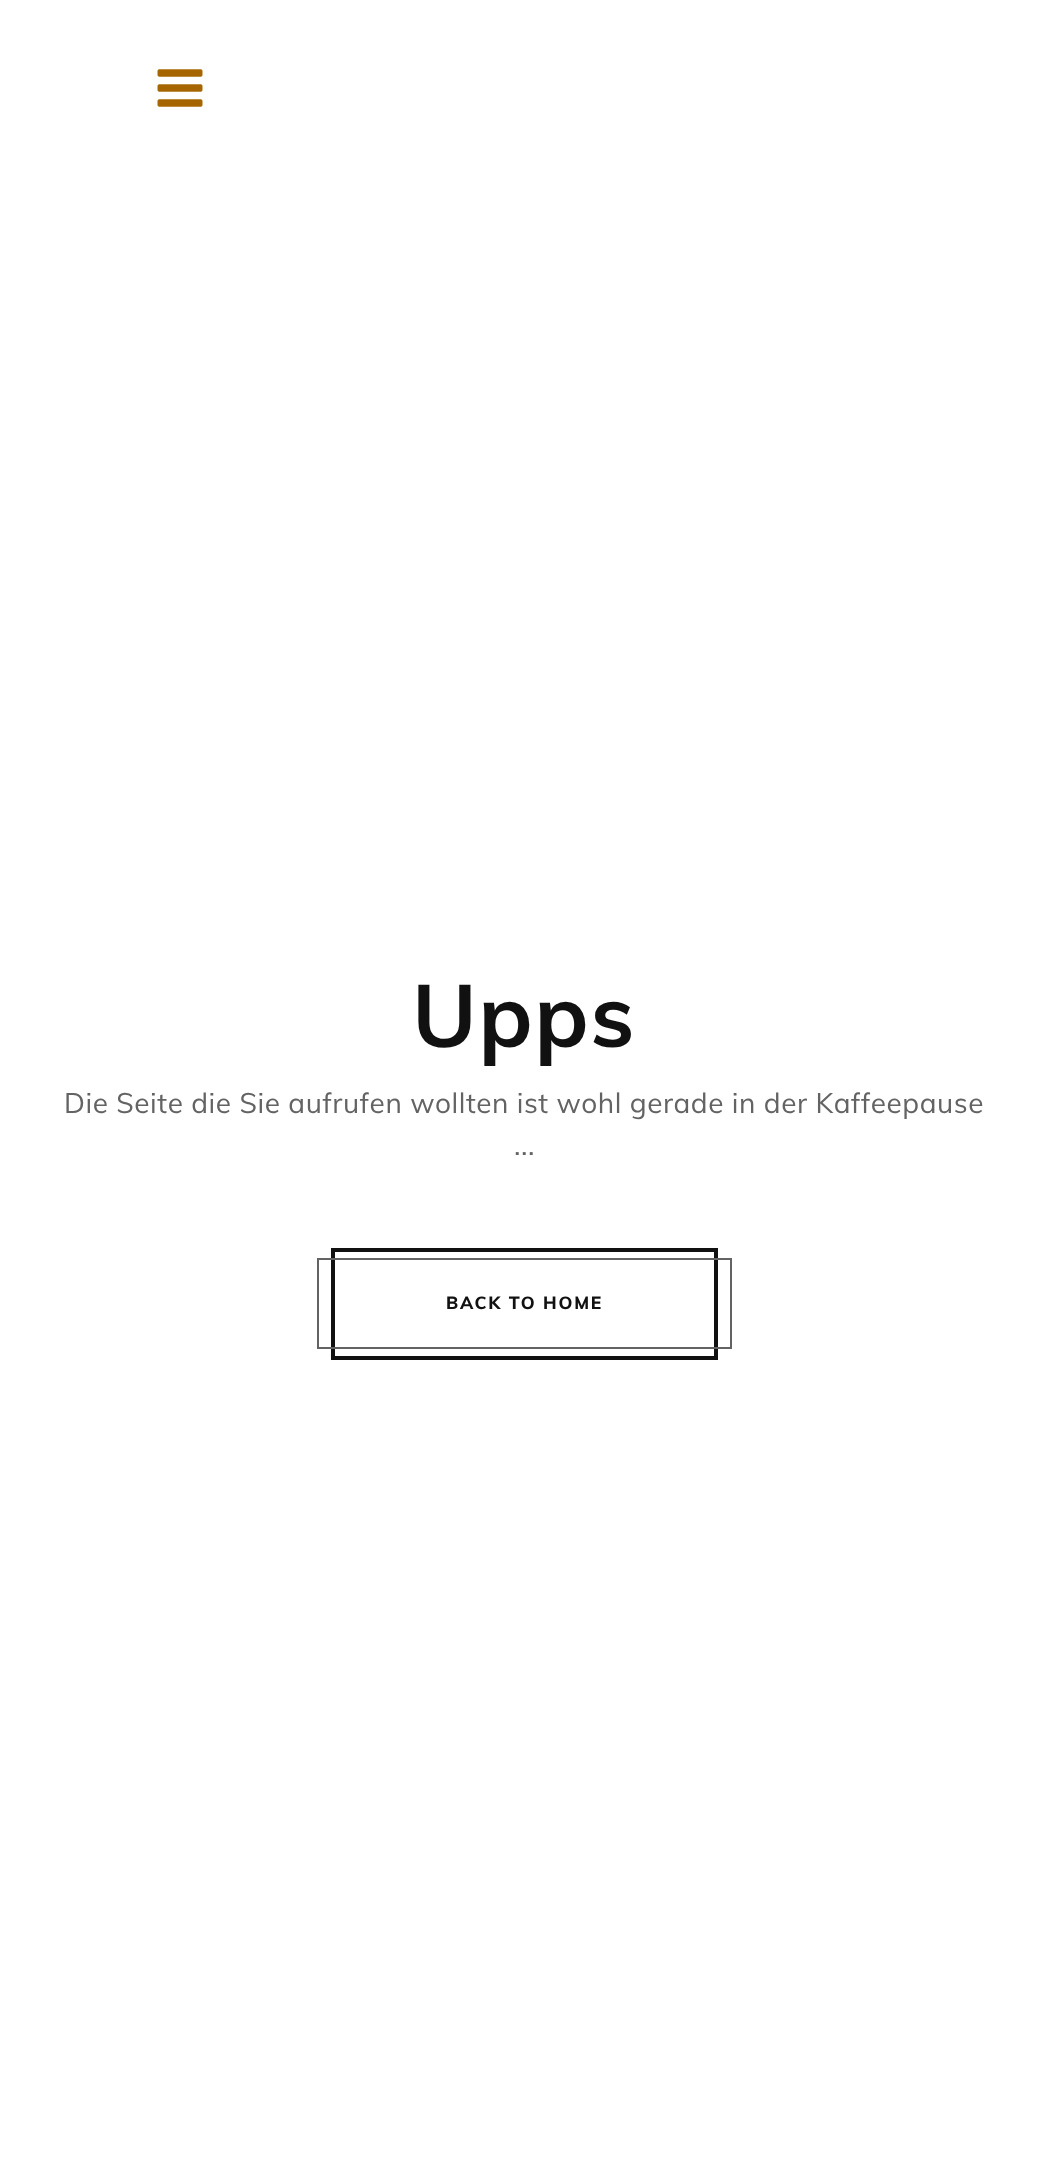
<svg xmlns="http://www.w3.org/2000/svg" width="1047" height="2165">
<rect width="100%" height="100%" fill="#fff"/>
<image x="157" y="69" width="46" height="38" href="media/1.png"/>
<text x="412" y="1047" style="font-family:Muli;font-size:87.5px;font-weight:bold;letter-spacing:1.75px;fill:#111">Upps</text>
<text x="64" y="1113" style="font-family:Muli;font-size:28px;letter-spacing:0.55px;fill:#636363">Die Seite die Sie aufrufen wollten ist wohl gerade in der Kaffeepause</text>
<text x="514" y="1155" style="font-family:Muli;font-size:28px;letter-spacing:0.55px;fill:#636363">...</text>
<rect x="333" y="1250" width="383" height="108" fill="none" stroke="#111" stroke-width="4"/>
<rect x="318" y="1259" width="413" height="89" fill="none" stroke="#636363" stroke-width="2"/>
<text x="446" y="1309" style="font-family:Muli;font-size:17.5px;font-weight:800;letter-spacing:1.75px;fill:#111">BACK TO HOME</text>
</svg>
